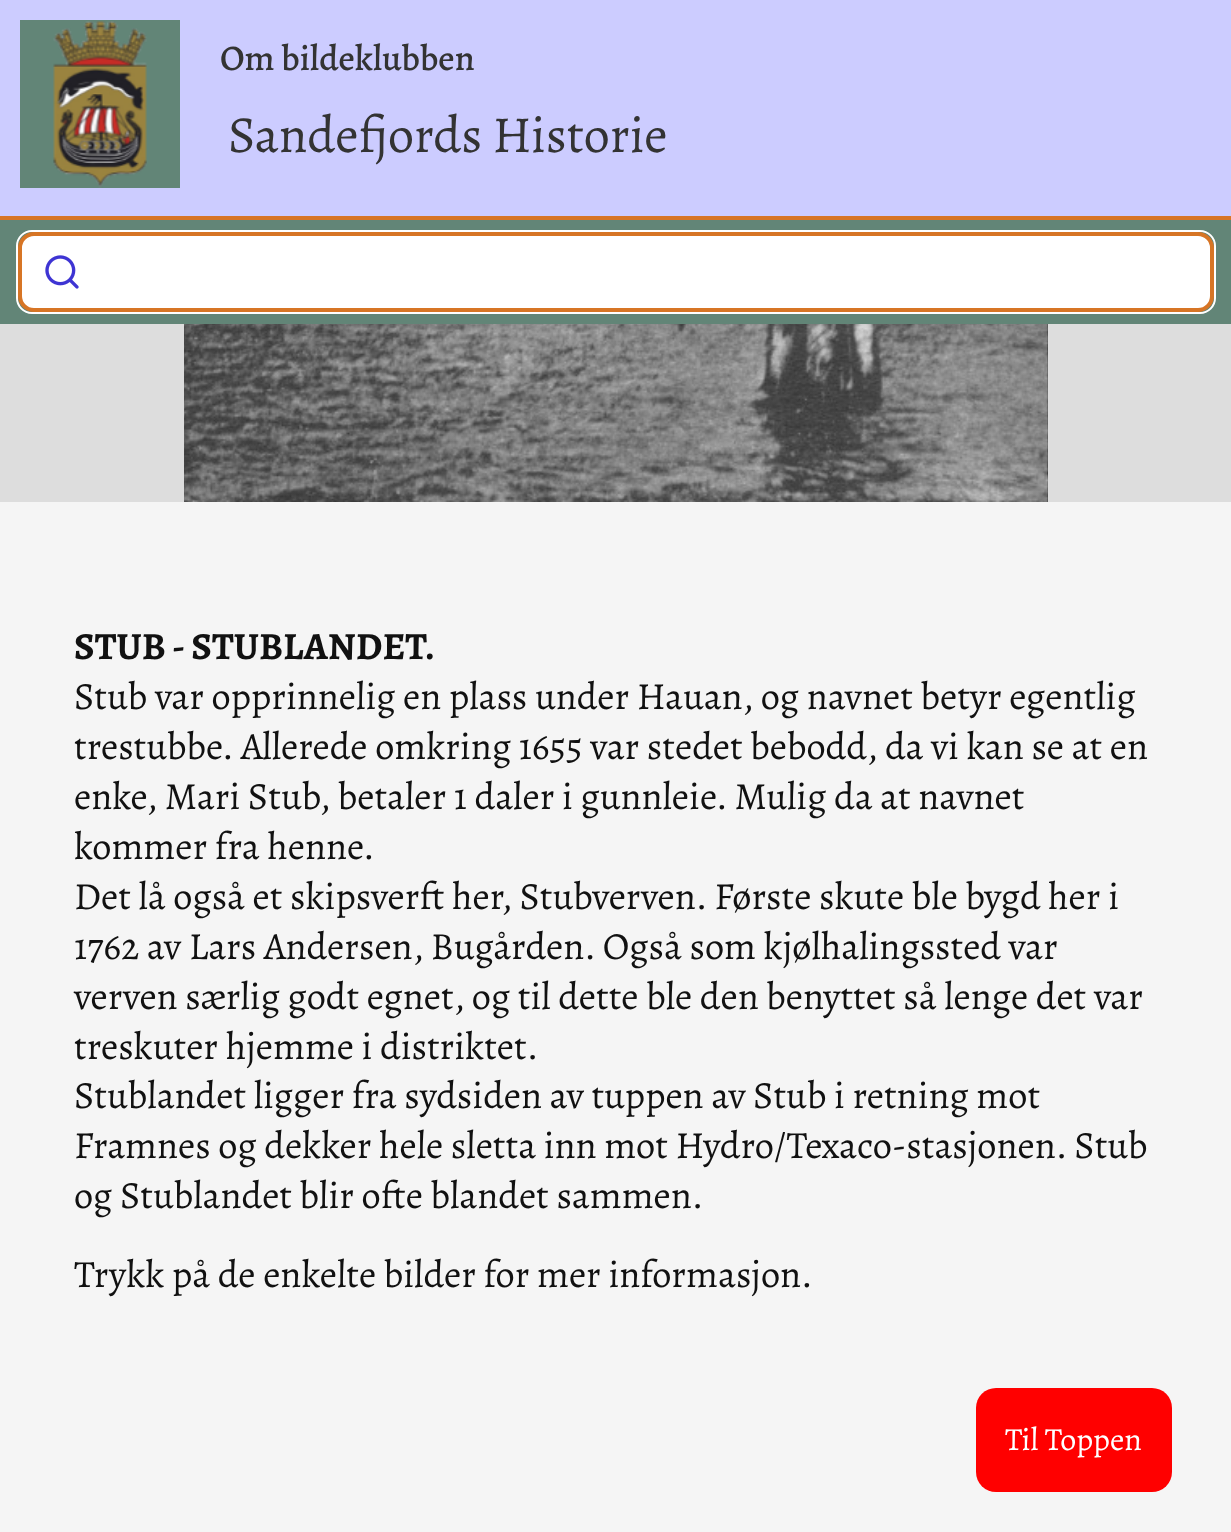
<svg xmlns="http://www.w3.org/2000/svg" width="1231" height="1532">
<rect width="100%" height="100%" fill="#f5f5f5"/>
<rect width="1231" height="216" fill="#ccf"/>
<rect y="216" width="1231" height="4" fill="#d77525"/>
<rect x="20" y="20" width="160" height="168" fill="#628577"/>
<image x="53" y="21" width="94" height="167" href="media/1.png"/>
<text x="220" y="70" style="font-family:Alegreya;font-size:36px;font-weight:500;fill:#333">Om bildeklubben</text>
<text x="228" y="152" style="font-family:Alegreya;font-size:52px;fill:#333">Sandefjords Historie</text>
<rect y="220" width="1231" height="104" fill="#628577"/>
<rect x="17" y="231" width="1198" height="82" rx="15" fill="none" stroke="#fff" stroke-width="2"/>
<rect x="20" y="234" width="1192" height="76" rx="14" fill="#fff" stroke="#d77525" stroke-width="4"/>
<image x="45" y="255" width="34" height="34" href="media/2.png"/>
<rect y="324" width="1231" height="178" fill="#ddd"/>
<image x="184" y="324" width="864" height="178" href="media/3.png"/>
<text x="74" y="659" style="font-family:Alegreya;font-size:38.4px;font-weight:bold;fill:#111">STUB - STUBLANDET.</text>
<text x="74" y="709" style="font-family:Alegreya;font-size:38.4px;fill:#111">Stub var opprinnelig en plass under Hauan, og navnet betyr egentlig</text>
<text x="74" y="759" style="font-family:Alegreya;font-size:38.4px;fill:#111">trestubbe. Allerede omkring 1655 var stedet bebodd, da vi kan se at en</text>
<text x="74" y="809" style="font-family:Alegreya;font-size:38.4px;fill:#111">enke, Mari Stub, betaler 1 daler i gunnleie. Mulig da at navnet</text>
<text x="74" y="859" style="font-family:Alegreya;font-size:38.4px;fill:#111">kommer fra henne.</text>
<text x="74" y="909" style="font-family:Alegreya;font-size:38.4px;fill:#111">Det lå også et skipsverft her, Stubverven. Første skute ble bygd her i</text>
<text x="74" y="959" style="font-family:Alegreya;font-size:38.4px;fill:#111">1762 av Lars Andersen, Bugården. Også som kjølhalingssted var</text>
<text x="74" y="1009" style="font-family:Alegreya;font-size:38.4px;fill:#111">verven særlig godt egnet, og til dette ble den benyttet så lenge det var</text>
<text x="74" y="1059" style="font-family:Alegreya;font-size:38.4px;fill:#111">treskuter hjemme i distriktet.</text>
<text x="74" y="1108" style="font-family:Alegreya;font-size:38.4px;fill:#111">Stublandet ligger fra sydsiden av tuppen av Stub i retning mot</text>
<text x="74" y="1158" style="font-family:Alegreya;font-size:38.4px;fill:#111">Framnes og dekker hele sletta inn mot Hydro/Texaco-stasjonen. Stub</text>
<text x="74" y="1208" style="font-family:Alegreya;font-size:38.4px;fill:#111">og Stublandet blir ofte blandet sammen.</text>
<text x="74" y="1287" style="font-family:Alegreya;font-size:38.4px;fill:#111">Trykk på de enkelte bilder for mer informasjon.</text>
<rect x="976" y="1388" width="196" height="104" rx="20" fill="#f00"/>
<text x="1005" y="1450" style="font-family:Alegreya;font-size:32px;fill:#fff">Til Toppen</text>
</svg>
